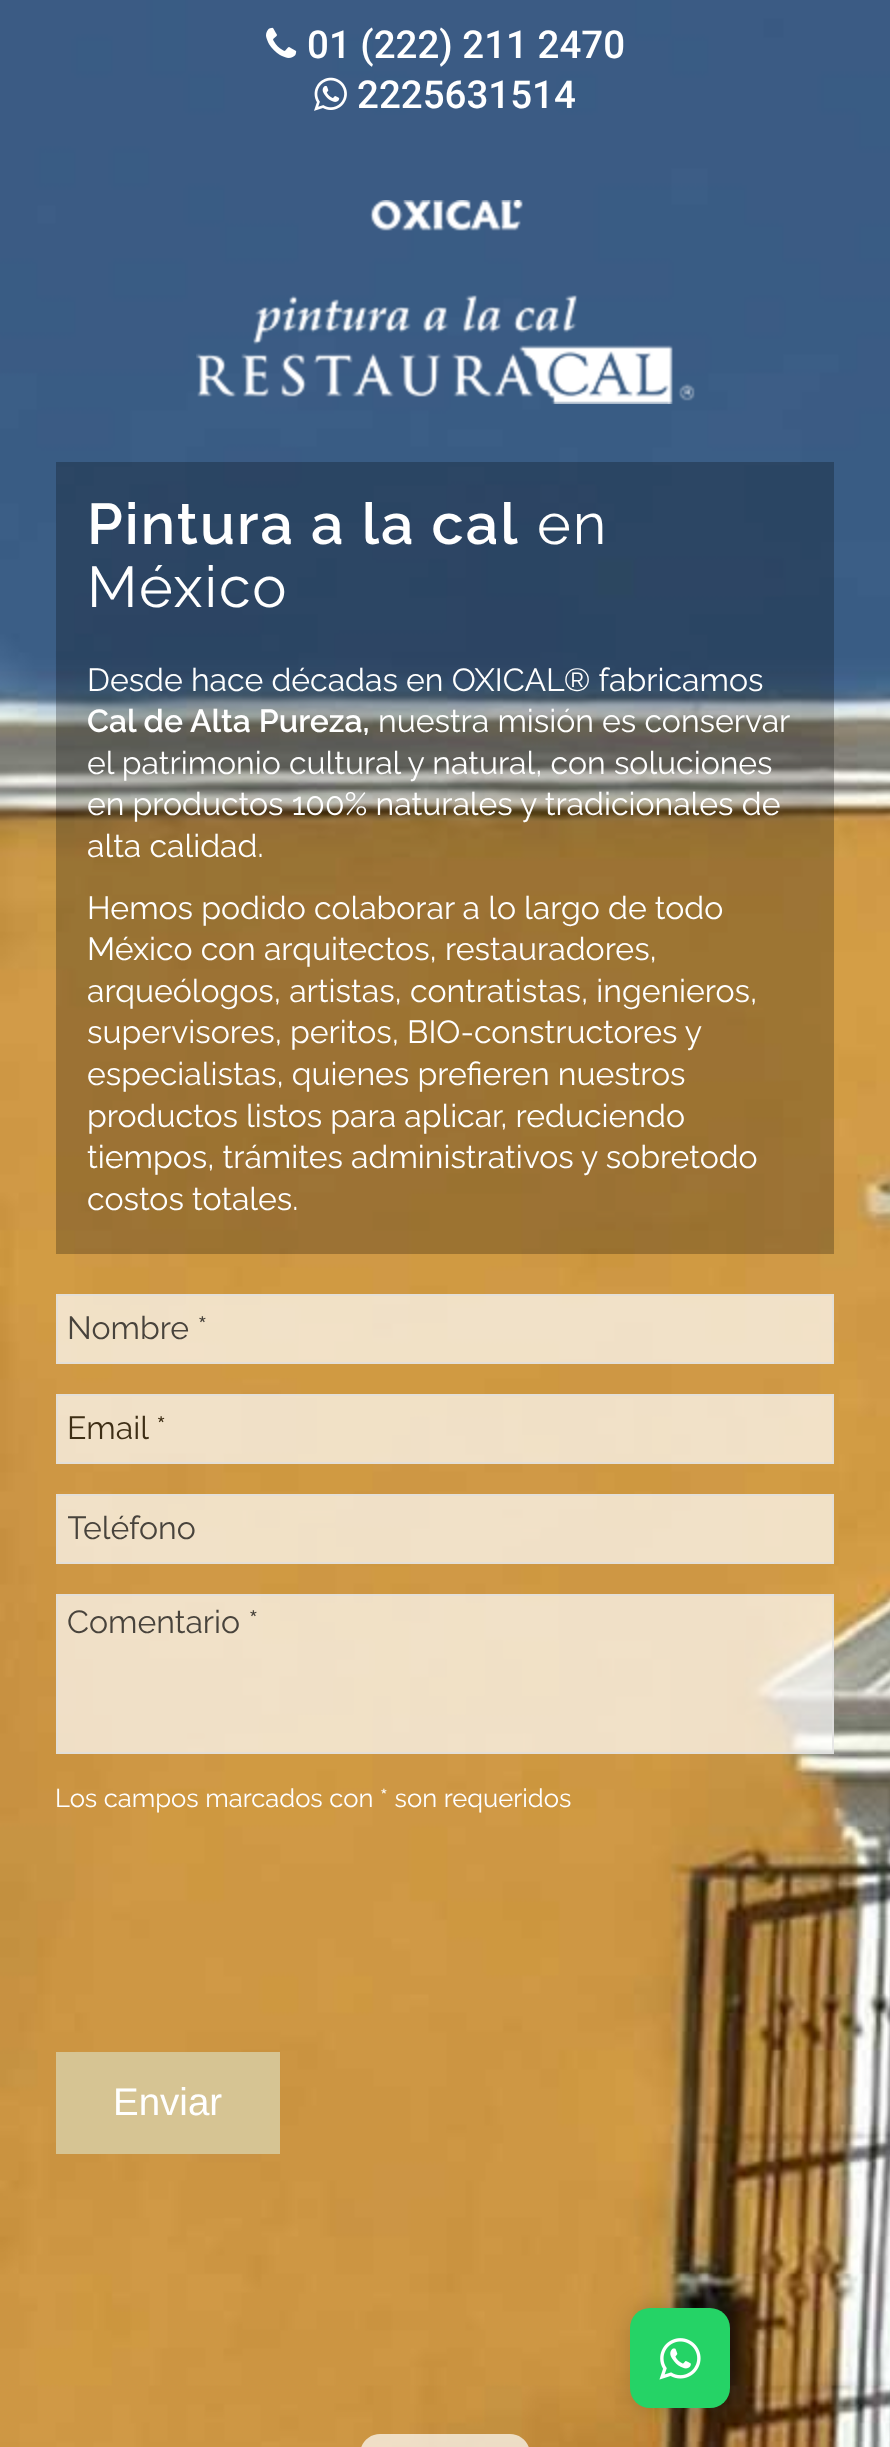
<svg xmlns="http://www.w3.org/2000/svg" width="890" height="2447">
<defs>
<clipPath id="clip1"><rect x="68" y="1510" width="754" height="38"/></clipPath>
</defs>
<rect width="100%" height="100%" fill="#fff"/>
<image x="0" y="0" width="890" height="2447" href="media/1.png"/>
<image x="266" y="27" width="31" height="31" href="media/2.png"/>
<text x="307" y="58" style="font-family:Roboto;font-size:38.5px;font-weight:500;fill:#fff">01 (222) 211 2470</text>
<image x="314" y="77" width="33" height="34" href="media/3.png"/>
<text x="357" y="108" style="font-family:Roboto;font-size:38.5px;font-weight:500;fill:#fff">2225631514</text>
<rect x="56" y="462" width="778" height="792" fill="#00000040"/>
<text x="87" y="544" style="font-family:Raleway;font-size:57.5px;font-weight:600;letter-spacing:2px;fill:#fff">Pintura a la cal</text>
<text x="537" y="544" style="font-family:Raleway;font-size:57.5px;letter-spacing:2px;fill:#fff">en</text>
<text x="87" y="607" style="font-family:Raleway;font-size:57.5px;letter-spacing:2px;fill:#fff">México</text>
<text x="87" y="691" style="font-family:Raleway;font-size:32px;fill:#fff">Desde hace décadas en OXICAL® fabricamos</text>
<text x="87" y="732" style="font-family:Raleway;font-size:32px;font-weight:600;fill:#fff">Cal de Alta Pureza,</text>
<text x="378" y="732" style="font-family:Raleway;font-size:32px;fill:#fff">nuestra misión es conservar</text>
<text x="87" y="774" style="font-family:Raleway;font-size:32px;fill:#fff">el patrimonio cultural y natural, con soluciones</text>
<text x="87" y="815" style="font-family:Raleway;font-size:32px;fill:#fff">en productos 100% naturales y tradicionales de</text>
<text x="87" y="857" style="font-family:Raleway;font-size:32px;fill:#fff">alta calidad.</text>
<text x="87" y="919" style="font-family:Raleway;font-size:32px;fill:#fff">Hemos podido colaborar a lo largo de todo</text>
<text x="87" y="960" style="font-family:Raleway;font-size:32px;fill:#fff">México con arquitectos, restauradores,</text>
<text x="87" y="1002" style="font-family:Raleway;font-size:32px;fill:#fff">arqueólogos, artistas, contratistas, ingenieros,</text>
<text x="87" y="1043" style="font-family:Raleway;font-size:32px;fill:#fff">supervisores, peritos, BIO-constructores y</text>
<text x="87" y="1085" style="font-family:Raleway;font-size:32px;fill:#fff">especialistas, quienes prefieren nuestros</text>
<text x="87" y="1127" style="font-family:Raleway;font-size:32px;fill:#fff">productos listos para aplicar, reduciendo</text>
<text x="87" y="1168" style="font-family:Raleway;font-size:32px;fill:#fff">tiempos, trámites administrativos y sobretodo</text>
<text x="87" y="1210" style="font-family:Raleway;font-size:32px;fill:#fff">costos totales.</text>
<rect x="57" y="1295" width="776" height="68" fill="#ffffffb3" stroke="#e4dfd7" stroke-width="2"/>
<text x="67" y="1339" style="font-family:Raleway;font-size:32px;fill:#48433c">Nombre *</text>
<rect x="57" y="1395" width="776" height="68" fill="#ffffffb3" stroke="#e4dfd7" stroke-width="2"/>
<text x="67" y="1439" style="font-family:Raleway;font-size:32px;fill:#3e2e15">Email *</text>
<rect x="57" y="1495" width="776" height="68" fill="#ffffffb3" stroke="#e4dfd7" stroke-width="2"/>
<g clip-path="url(#clip1)">
<text x="67" y="1539" style="font-family:Raleway;font-size:32px;fill:#48433c">Teléfono</text>
</g>
<rect x="56" y="1594" width="778" height="160" fill="#ffffffb3"/>
<rect x="57" y="1595" width="776" height="158" fill="none" stroke="#dededeb3" stroke-width="2"/>
<text x="67" y="1633" style="font-family:Raleway;font-size:32px;fill:#48433c">Comentario *</text>
<text x="55" y="1807" style="font-family:Raleway;font-size:25.6px;fill:#fff">Los campos marcados con * son requeridos</text>
<rect x="56" y="2052" width="224" height="102" fill="#d6c493"/>
<text x="113" y="2115" style="font-family:Liberation Sans;font-size:38.5px;fill:#fff">Enviar</text>
<path d="M380 2434h130c11 0 20 9 20 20v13h-170v-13c0-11 9-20 20-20z" fill="#ffffffb3"/>
<image x="196" y="200" width="499" height="204" href="media/4.png"/>
<rect x="630" y="2308" width="100" height="100" rx="20" fill="#00000026" filter="blur(12px)"/>
<rect x="630" y="2308" width="100" height="100" rx="20" fill="#25d366"/>
<image x="659" y="2338" width="42" height="42" href="media/5.png"/>
</svg>
